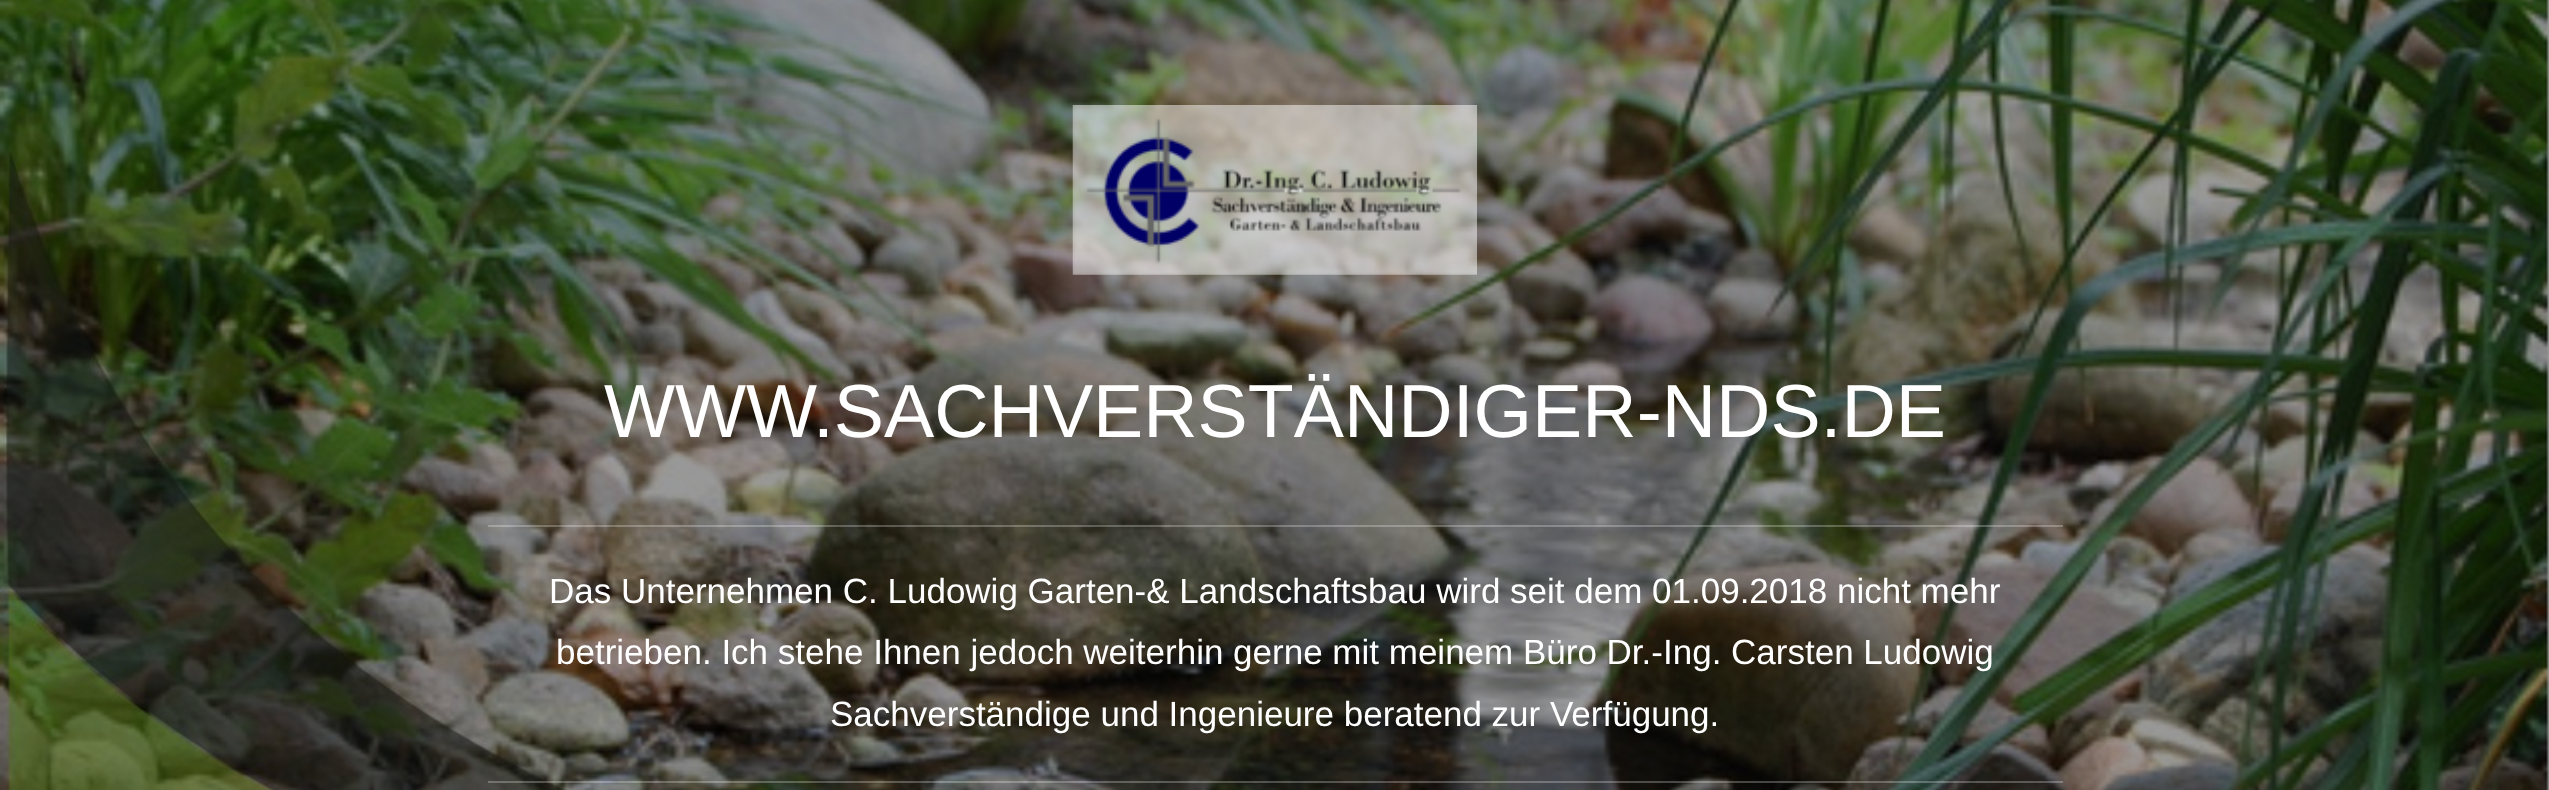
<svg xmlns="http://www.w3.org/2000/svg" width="2549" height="790">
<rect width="100%" height="100%" fill="#fff"/>
<image x="0" y="0" width="2549" height="790" href="media/1.png"/>
<image x="1072" y="105" width="405" height="170" href="media/2.png"/>
<text x="604" y="437" style="font-family:Liberation Sans;font-size:75.25px;fill:#fff">WWW.SACHVERSTÄNDIGER-NDS.DE</text>
<rect x="488" y="525" width="1575" height="2" fill="#ffffff40"/>
<rect x="488" y="781" width="1575" height="2" fill="#ffffff40"/>
<text x="549" y="603" style="font-family:Liberation Sans;font-size:35px;fill:#fff">Das Unternehmen C. Ludowig Garten-&amp; Landschaftsbau wird seit dem 01.09.2018 nicht mehr</text>
<text x="556" y="664" style="font-family:Liberation Sans;font-size:35px;fill:#fff">betrieben. Ich stehe Ihnen jedoch weiterhin gerne mit meinem Büro Dr.-Ing. Carsten Ludowig</text>
<text x="830" y="726" style="font-family:Liberation Sans;font-size:35px;fill:#fff">Sachverständige und Ingenieure beratend zur Verfügung.</text>
</svg>
